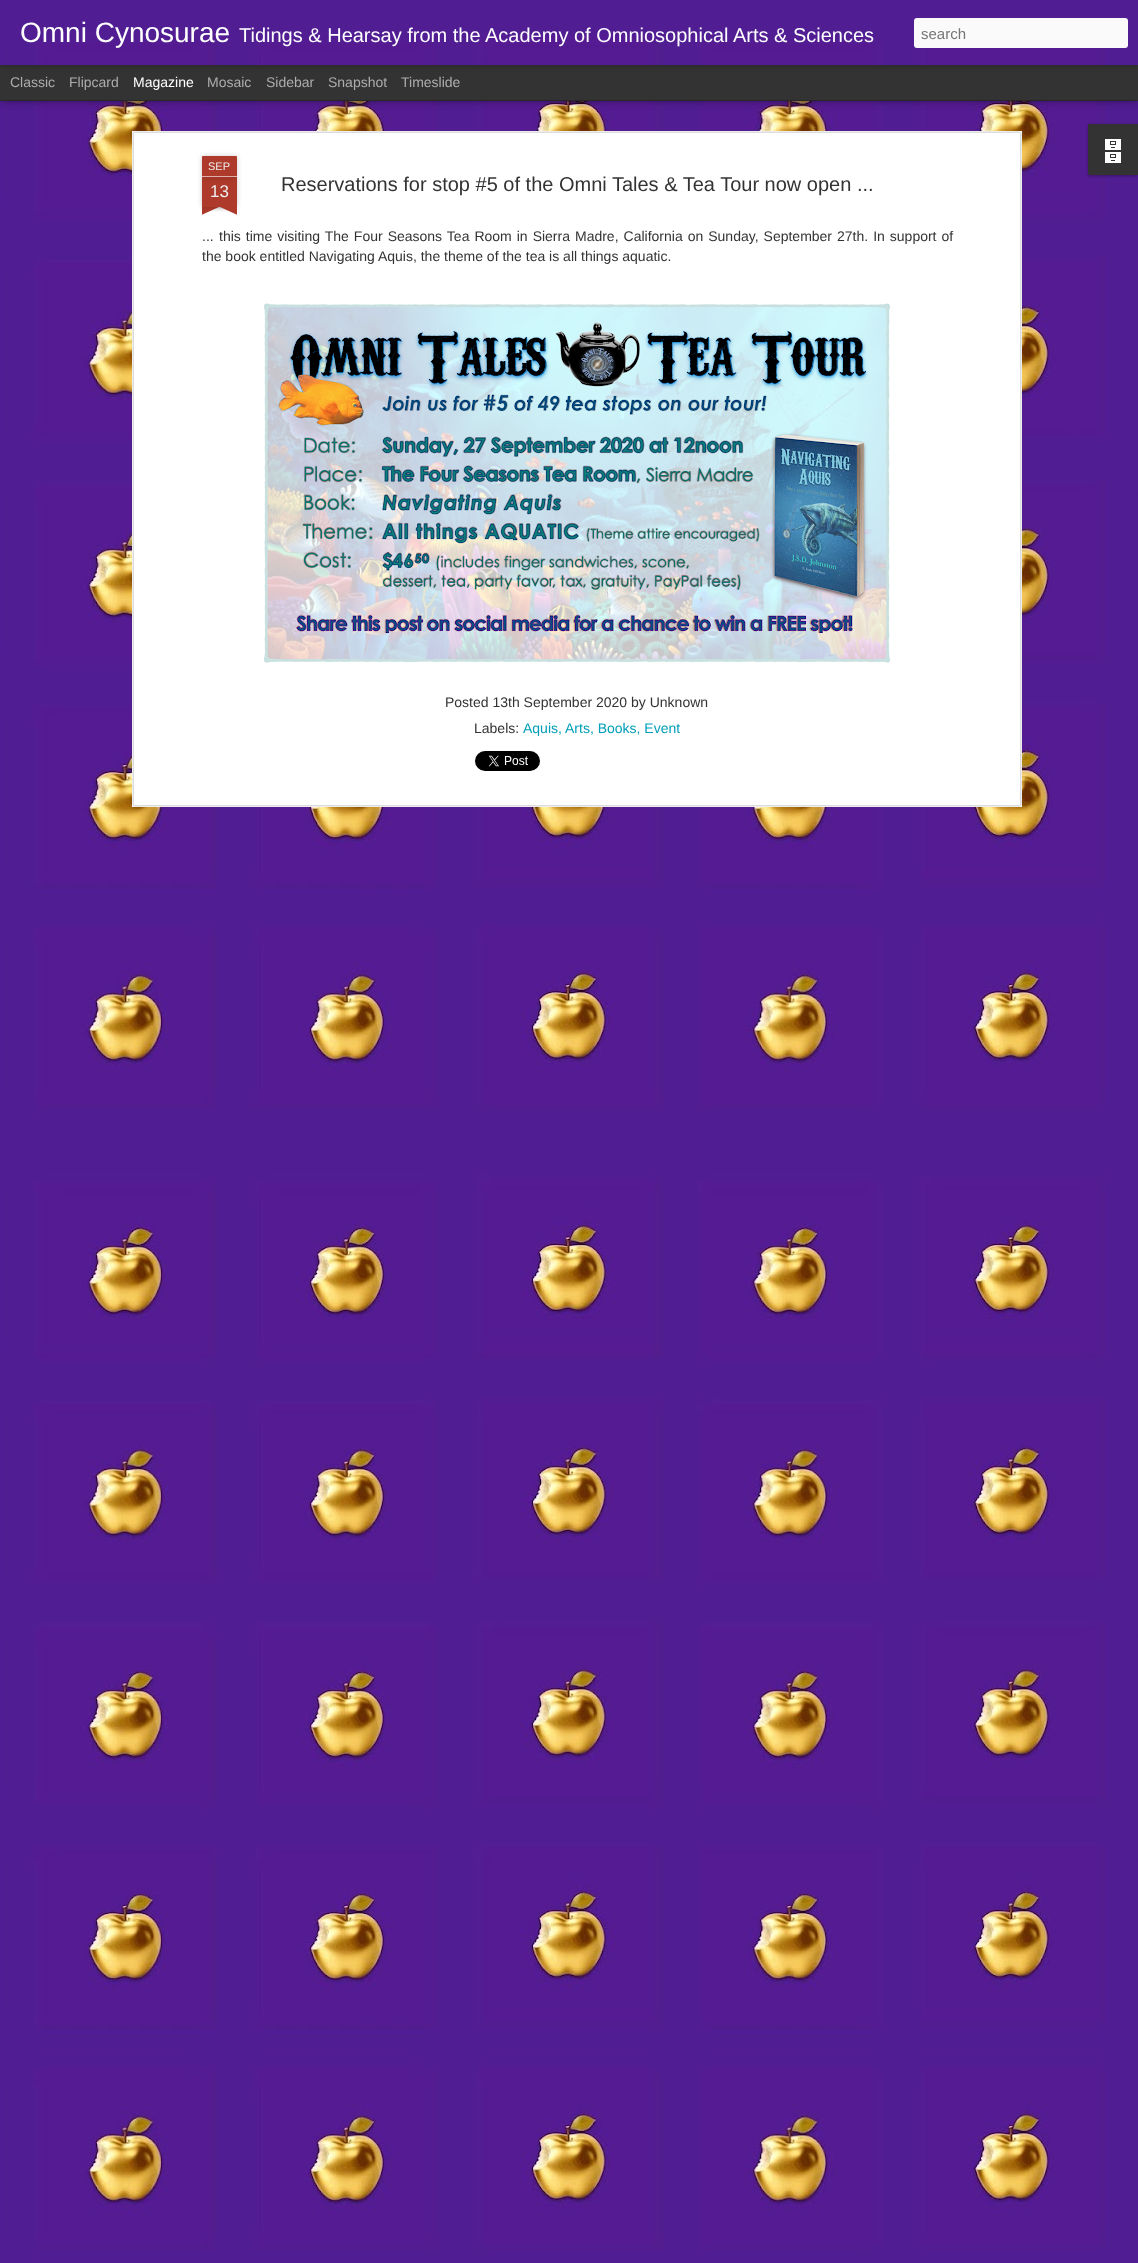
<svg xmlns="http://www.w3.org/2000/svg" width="1138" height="2263">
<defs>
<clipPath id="clip1"><rect x="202" y="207" width="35" height="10"/></clipPath>
<clipPath id="clip2"><rect x="202" y="207" width="35" height="10"/></clipPath>
</defs>
<rect width="100%" height="100%" fill="#333"/>
<image x="0" y="101" width="1138" height="2162" href="media/3.png"/>
<rect y="65" width="1138" height="35" fill="#00000080" filter="blur(4px)"/>
<rect y="65" width="1138" height="35" fill="#333"/>
<rect width="1138" height="65" fill="#0000004d" filter="blur(2.5px)"/>
<image x="0" y="0" width="1138" height="65" href="media/1.png"/>
<text x="20" y="42" style="font-family:Liberation Sans;font-size:28px;fill:#fff">Omni Cynosurae</text>
<text x="239" y="42" style="font-family:Liberation Sans;font-size:20px;fill:#fff">Tidings &amp; Hearsay from the Academy of Omniosophical Arts &amp; Sciences</text>
<rect x="914" y="18" width="214" height="30" rx="3" fill="#fafafa"/>
<text x="921" y="39" style="font-family:Liberation Sans;font-size:15px;fill:#757575">search</text>
<text x="10" y="87" style="font-family:Liberation Sans;font-size:14px;fill:#adadad">Classic</text>
<text x="69" y="87" style="font-family:Liberation Sans;font-size:14px;fill:#adadad">Flipcard</text>
<text x="133" y="87" style="font-family:Liberation Sans;font-size:14px;fill:#fff">Magazine</text>
<text x="207" y="87" style="font-family:Liberation Sans;font-size:14px;fill:#adadad">Mosaic</text>
<text x="266" y="87" style="font-family:Liberation Sans;font-size:14px;fill:#adadad">Sidebar</text>
<text x="328" y="87" style="font-family:Liberation Sans;font-size:14px;fill:#adadad">Snapshot</text>
<text x="401" y="87" style="font-family:Liberation Sans;font-size:14px;fill:#adadad">Timeslide</text>
<rect x="1088" y="125" width="50" height="51" rx="2" fill="#0000004d" filter="blur(1.5px)"/>
<path d="M1088 124h50v51h-48c-1 0-2-1-2-2z" fill="#333"/>
<image x="1105" y="139" width="16" height="24" href="media/2.png"/>
<rect x="132" y="131" width="890" height="676" fill="#fff"/>
<image x="132" y="131" width="890" height="676" href="media/4.png"/>
<rect x="202" y="177" width="35" height="30" fill="#00000033" filter="blur(2.5px)"/>
<rect x="202" y="177" width="35" height="30" fill="#ad3a2b"/>
<rect x="202" y="156" width="35" height="21" rx="1" fill="#00000033" filter="blur(2.5px)"/>
<path d="M203 156h33c.5 0 1 .5 1 1v20h-35v-20c0-.5 .5-1 1-1z" fill="#ad3a2b"/>
<rect x="202" y="176" width="35" height="1" fill="#deb0aa"/>
<text x="208" y="170" style="font-family:Liberation Sans;font-size:11px;fill:#eee">SEP</text>
<text x="210" y="197" style="font-family:Liberation Sans;font-size:17px;fill:#eee">13</text>
<g clip-path="url(#clip1)">
<rect x="193" y="197" width="50" height="10" fill="#00000033" filter="blur(2.5px)"/>
</g>
<g clip-path="url(#clip2)">
<path d="M193 208l46-21l4 9l-46 21z" fill="#ad3a2b"/>
</g>
<g clip-path="url(#clip1)">
<rect x="196" y="197" width="50" height="10" fill="#00000033" filter="blur(2.5px)"/>
</g>
<g clip-path="url(#clip2)">
<path d="M200 187l46 21l-4 9l-46-21z" fill="#ad3a2b"/>
</g>
<text x="281" y="191" style="font-family:Liberation Sans;font-size:20px;fill:#333">Reservations for stop #5 of the Omni Tales &amp; Tea Tour now open ...</text>
<text x="202" y="241" style="font-family:Liberation Sans;font-size:14px;fill:#333">...</text>
<text x="219" y="241" word-spacing="1.1" style="font-family:Liberation Sans;font-size:14px;fill:#333">this time visiting The Four Seasons Tea Room in Sierra Madre, California on Sunday, September 27th. In support of</text>
<text x="202" y="261" style="font-family:Liberation Sans;font-size:14px;fill:#333">the book entitled Navigating Aquis, the theme of the tea is all things aquatic.</text>
<image x="263" y="303" width="627" height="360" href="media/5.png"/>
<text x="445" y="707" style="font-family:Liberation Sans;font-size:14px;fill:#333">Posted 13th September 2020 by Unknown</text>
<text x="474" y="733" style="font-family:Liberation Sans;font-size:14px;fill:#333">Labels:</text>
<text x="523" y="733" style="font-family:Liberation Sans;font-size:14px;fill:#009eb8">Aquis,</text>
<text x="565" y="733" style="font-family:Liberation Sans;font-size:14px;fill:#009eb8">Arts, Books, Event</text>
<image x="475" y="751" width="65" height="20" href="media/6.png"/>
</svg>
